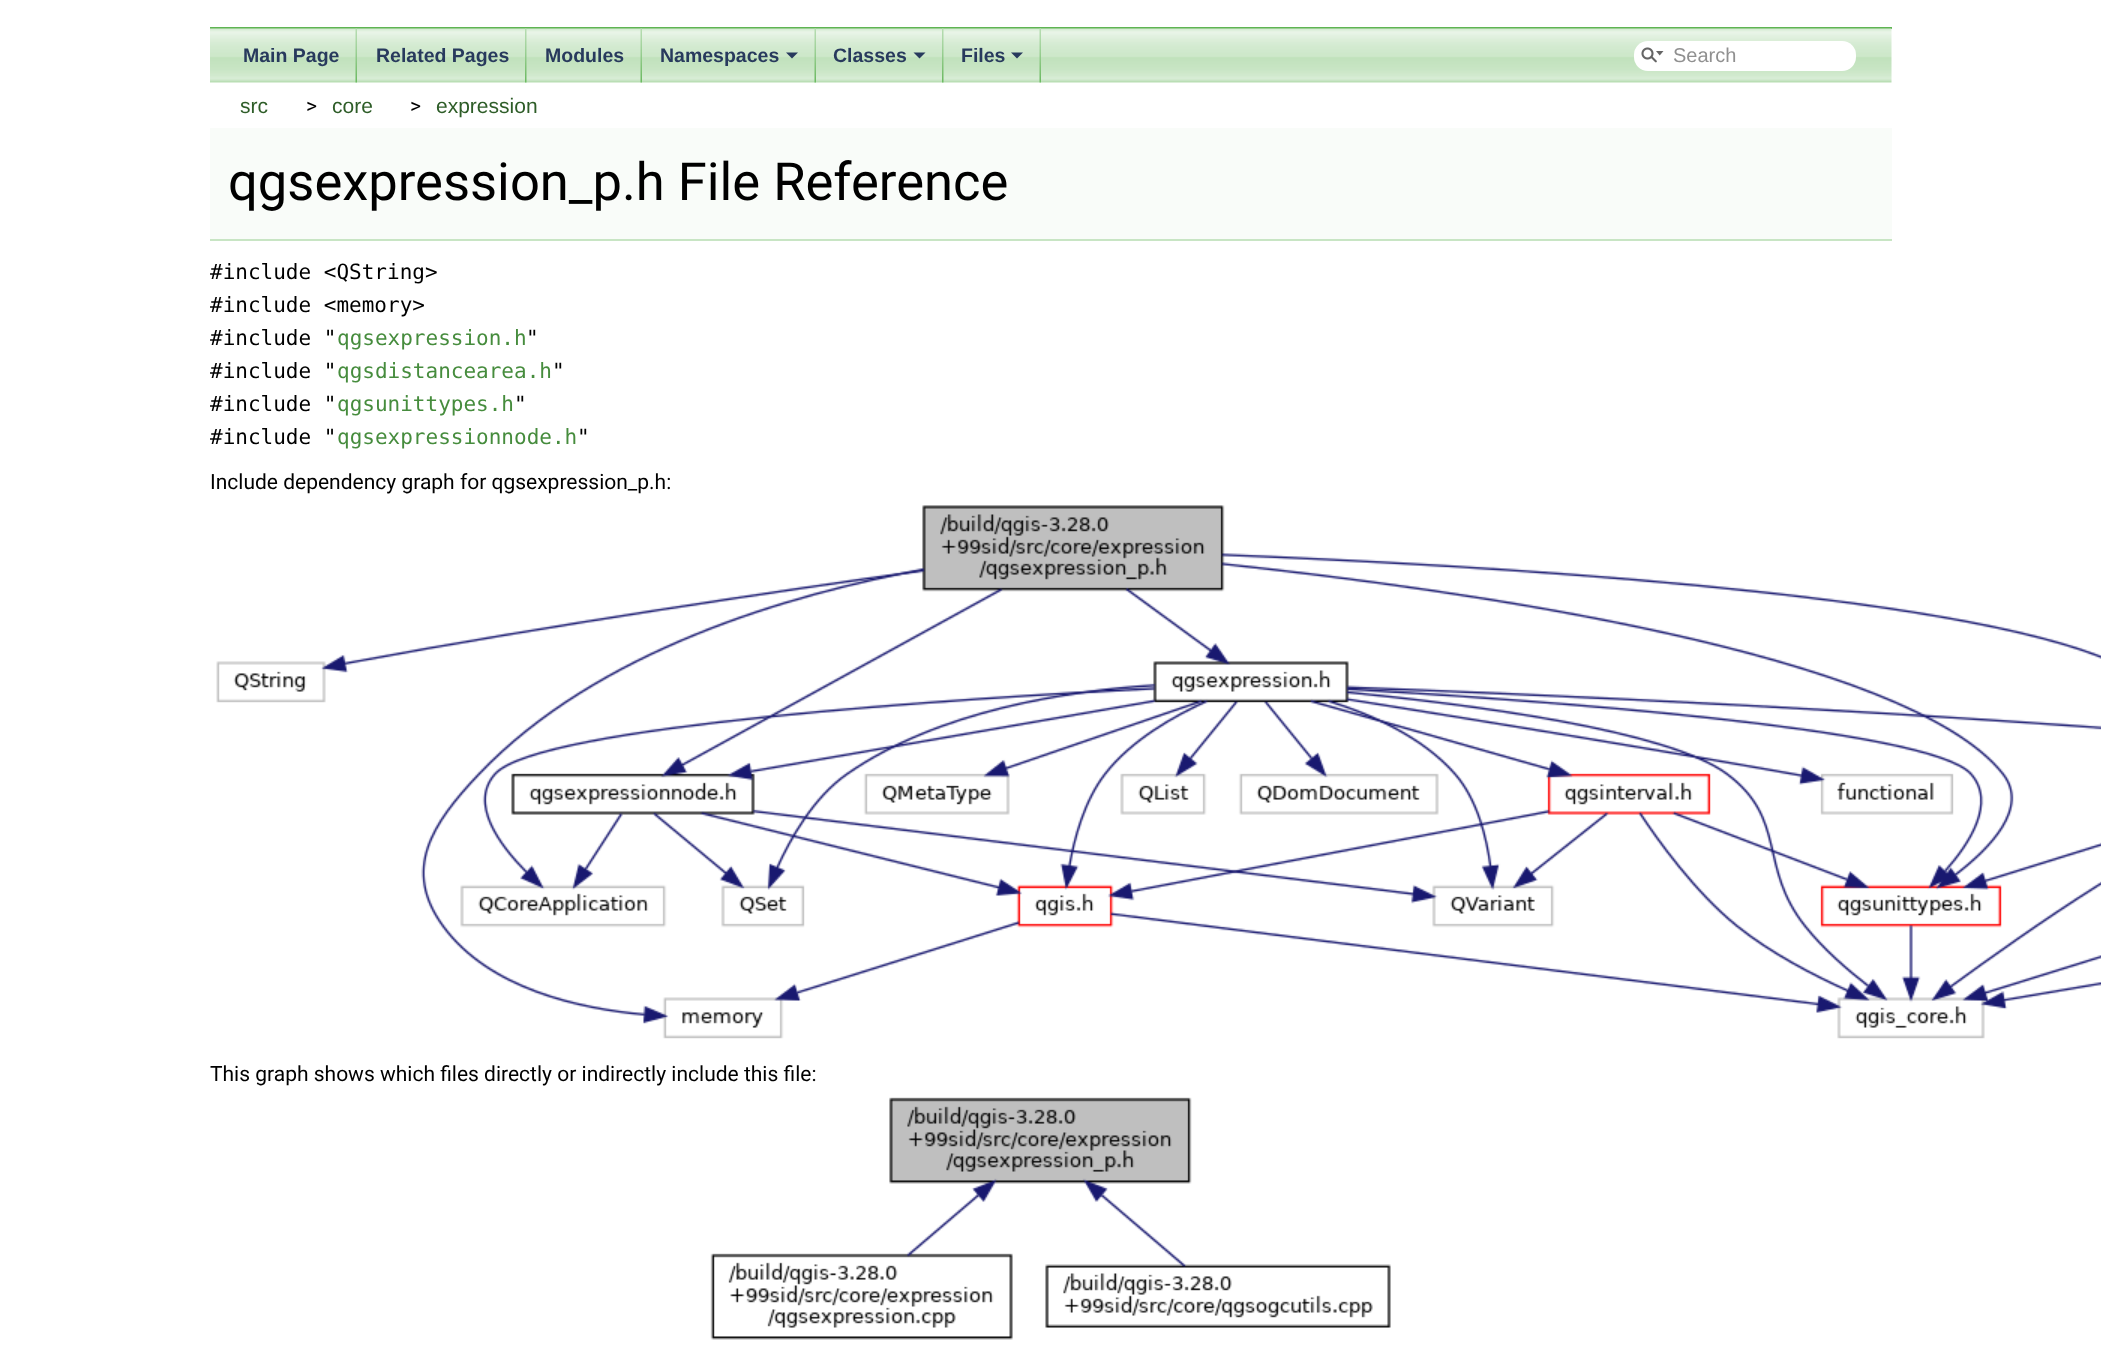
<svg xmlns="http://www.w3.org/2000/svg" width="2101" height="1359">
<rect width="100%" height="100%" fill="#fff"/>
<rect x="210" y="27" width="1682" height="2" fill="#5fb453"/>
<image x="210" y="28" width="1682" height="55" href="media/1.png"/>
<image x="355" y="28" width="2" height="55" href="media/2.png"/>
<text x="243" y="62" style="font-family:Liberation Sans;font-size:19.5px;font-weight:bold;fill:#283a5d">Main Page</text>
<image x="525" y="28" width="2" height="55" href="media/3.png"/>
<text x="376" y="62" style="font-family:Liberation Sans;font-size:19.5px;font-weight:bold;fill:#283a5d">Related Pages</text>
<image x="640" y="28" width="2" height="55" href="media/2.png"/>
<text x="545" y="62" style="font-family:Liberation Sans;font-size:19.5px;font-weight:bold;fill:#283a5d">Modules</text>
<image x="814" y="28" width="2" height="55" href="media/2.png"/>
<text x="660" y="62" style="font-family:Liberation Sans;font-size:19.5px;font-weight:bold;fill:#283a5d">Namespaces</text>
<path d="M786 52.5h12l-6 6z" fill="#283a5d"/>
<image x="942" y="28" width="2" height="55" href="media/3.png"/>
<text x="833" y="62" style="font-family:Liberation Sans;font-size:19.5px;font-weight:bold;fill:#283a5d">Classes</text>
<path d="M913.5 52.5h12l-6 6z" fill="#283a5d"/>
<image x="1039" y="28" width="2" height="55" href="media/2.png"/>
<text x="961" y="62" style="font-family:Liberation Sans;font-size:19.5px;font-weight:bold;fill:#283a5d">Files</text>
<path d="M1011 52.5h12l-6 6z" fill="#283a5d"/>
<rect x="1634" y="41" width="222" height="30" rx="14" fill="#fff"/>
<image x="1641" y="47" width="23" height="16" href="media/4.png"/>
<text x="1673" y="62" style="font-family:Liberation Sans;font-size:20px;fill:#909090">Search</text>
<text x="240" y="113" style="font-family:Liberation Sans;font-size:21px;fill:#2e5d28">src</text>
<text x="306" y="113" style="font-family:Roboto;font-size:21px;fill:#000">&gt;</text>
<text x="332" y="113" style="font-family:Liberation Sans;font-size:21px;fill:#2e5d28">core</text>
<text x="410" y="113" style="font-family:Roboto;font-size:21px;fill:#000">&gt;</text>
<text x="436" y="113" style="font-family:Liberation Sans;font-size:21px;fill:#2e5d28">expression</text>
<rect x="210" y="128" width="1682" height="111" fill="#f9fcf9"/>
<rect x="210" y="239" width="1682" height="2" fill="#c8e5c4"/>
<text x="228" y="200" style="font-family:Roboto;font-size:52.5px;fill:#000">qgsexpression_p.h File Reference</text>
<text x="210" y="279" style="font-family:DejaVu Sans Mono;font-size:21px;fill:#000">#include &lt;QString&gt;</text>
<text x="210" y="312" style="font-family:DejaVu Sans Mono;font-size:21px;fill:#000">#include &lt;memory&gt;</text>
<text x="210" y="345" style="font-family:DejaVu Sans Mono;font-size:21px;fill:#000">#include "</text>
<text x="337" y="345" style="font-family:DejaVu Sans Mono;font-size:21px;fill:#468c3d">qgsexpression.h</text>
<text x="526" y="345" style="font-family:DejaVu Sans Mono;font-size:21px;fill:#000">"</text>
<text x="210" y="378" style="font-family:DejaVu Sans Mono;font-size:21px;fill:#000">#include "</text>
<text x="337" y="378" style="font-family:DejaVu Sans Mono;font-size:21px;fill:#468c3d">qgsdistancearea.h</text>
<text x="552" y="378" style="font-family:DejaVu Sans Mono;font-size:21px;fill:#000">"</text>
<text x="210" y="411" style="font-family:DejaVu Sans Mono;font-size:21px;fill:#000">#include "</text>
<text x="337" y="411" style="font-family:DejaVu Sans Mono;font-size:21px;fill:#468c3d">qgsunittypes.h</text>
<text x="514" y="411" style="font-family:DejaVu Sans Mono;font-size:21px;fill:#000">"</text>
<text x="210" y="444" style="font-family:DejaVu Sans Mono;font-size:21px;fill:#000">#include "</text>
<text x="337" y="444" style="font-family:DejaVu Sans Mono;font-size:21px;fill:#468c3d">qgsexpressionnode.h</text>
<text x="577" y="444" style="font-family:DejaVu Sans Mono;font-size:21px;fill:#000">"</text>
<text x="210" y="489" style="font-family:Roboto;font-size:21px;fill:#000">Include dependency graph for qgsexpression_p.h:</text>
<image x="216" y="505" width="1885" height="534" href="media/5.png"/>
<text x="210" y="1081" style="font-family:Roboto;font-size:21px;fill:#000">This graph shows which files directly or indirectly include this file:</text>
<image x="710" y="1097" width="681" height="243" href="media/6.png"/>
</svg>
